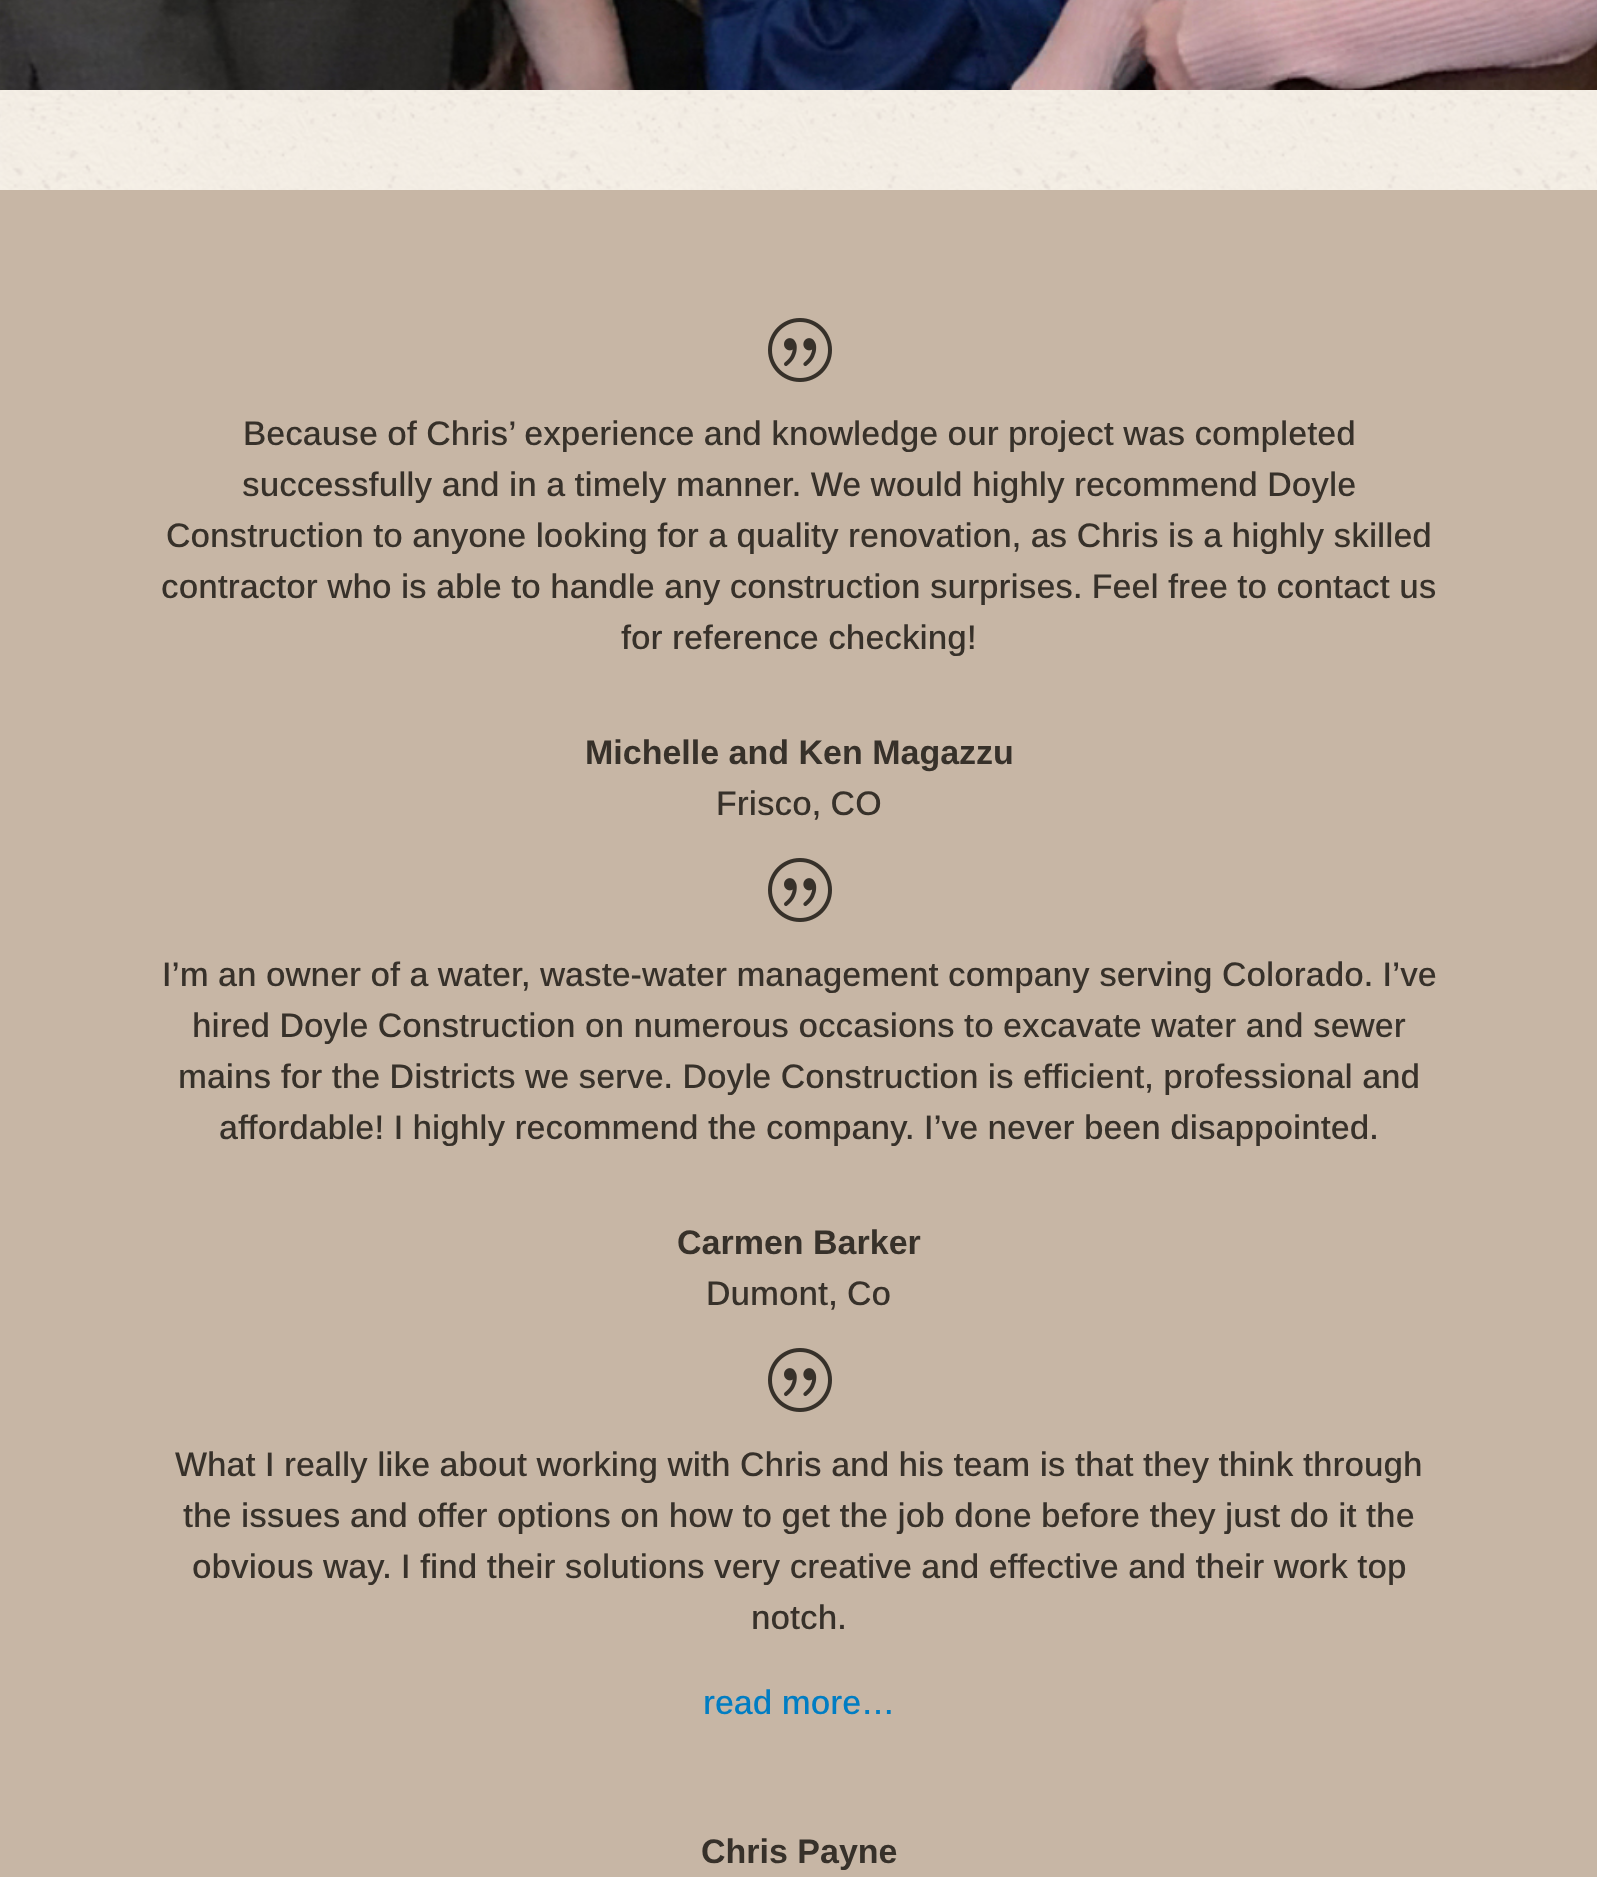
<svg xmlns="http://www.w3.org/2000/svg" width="1597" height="1877">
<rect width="100%" height="100%" fill="#fff"/>
<image x="0" y="90" width="1597" height="100" href="media/1.png"/>
<image x="0" y="0" width="1597" height="90" href="media/2.png"/>
<rect y="190" width="1597" height="1687" fill="#c7b6a5"/>
<image x="768" y="318" width="64" height="64" href="media/3.png"/>
<text x="243" y="445" style="font-family:Arimo;font-size:34px;font-weight:500;fill:#37312a">Because of Chris’ experience and knowledge our project was completed</text>
<text x="242" y="496" style="font-family:Arimo;font-size:34px;font-weight:500;fill:#37312a">successfully and in a timely manner. We would highly recommend Doyle</text>
<text x="166" y="547" style="font-family:Arimo;font-size:34px;font-weight:500;fill:#37312a">Construction to anyone looking for a quality renovation, as Chris is a highly skilled</text>
<text x="161" y="598" style="font-family:Arimo;font-size:34px;font-weight:500;fill:#37312a">contractor who is able to handle any construction surprises. Feel free to contact us</text>
<text x="621" y="649" style="font-family:Arimo;font-size:34px;font-weight:500;fill:#37312a">for reference checking!</text>
<text x="585" y="764" style="font-family:Arimo;font-size:34px;font-weight:bold;fill:#37312a">Michelle and Ken Magazzu</text>
<text x="716" y="815" style="font-family:Arimo;font-size:34px;font-weight:500;fill:#37312a">Frisco, CO</text>
<image x="768" y="858" width="64" height="64" href="media/3.png"/>
<text x="162" y="986" style="font-family:Arimo;font-size:34px;font-weight:500;fill:#37312a">I’m an owner of a water, waste-water management company serving Colorado. I’ve</text>
<text x="192" y="1037" style="font-family:Arimo;font-size:34px;font-weight:500;fill:#37312a">hired Doyle Construction on numerous occasions to excavate water and sewer</text>
<text x="178" y="1088" style="font-family:Arimo;font-size:34px;font-weight:500;fill:#37312a">mains for the Districts we serve. Doyle Construction is efficient, professional and</text>
<text x="219" y="1139" style="font-family:Arimo;font-size:34px;font-weight:500;fill:#37312a">affordable! I highly recommend the company. I’ve never been disappointed.</text>
<text x="677" y="1254" style="font-family:Arimo;font-size:34px;font-weight:bold;fill:#37312a">Carmen Barker</text>
<text x="706" y="1305" style="font-family:Arimo;font-size:34px;font-weight:500;fill:#37312a">Dumont, Co</text>
<image x="768" y="1348" width="64" height="64" href="media/3.png"/>
<text x="175" y="1476" style="font-family:Arimo;font-size:34px;font-weight:500;fill:#37312a">What I really like about working with Chris and his team is that they think through</text>
<text x="183" y="1527" style="font-family:Arimo;font-size:34px;font-weight:500;fill:#37312a">the issues and offer options on how to get the job done before they just do it the</text>
<text x="192" y="1578" style="font-family:Arimo;font-size:34px;font-weight:500;fill:#37312a">obvious way. I find their solutions very creative and effective and their work top</text>
<text x="751" y="1629" style="font-family:Arimo;font-size:34px;font-weight:500;fill:#37312a">notch.</text>
<text x="703" y="1714" style="font-family:Arimo;font-size:34px;font-weight:500;fill:#007dc3">read more…</text>
<text x="701" y="1863" style="font-family:Arimo;font-size:34px;font-weight:bold;fill:#37312a">Chris Payne</text>
</svg>
